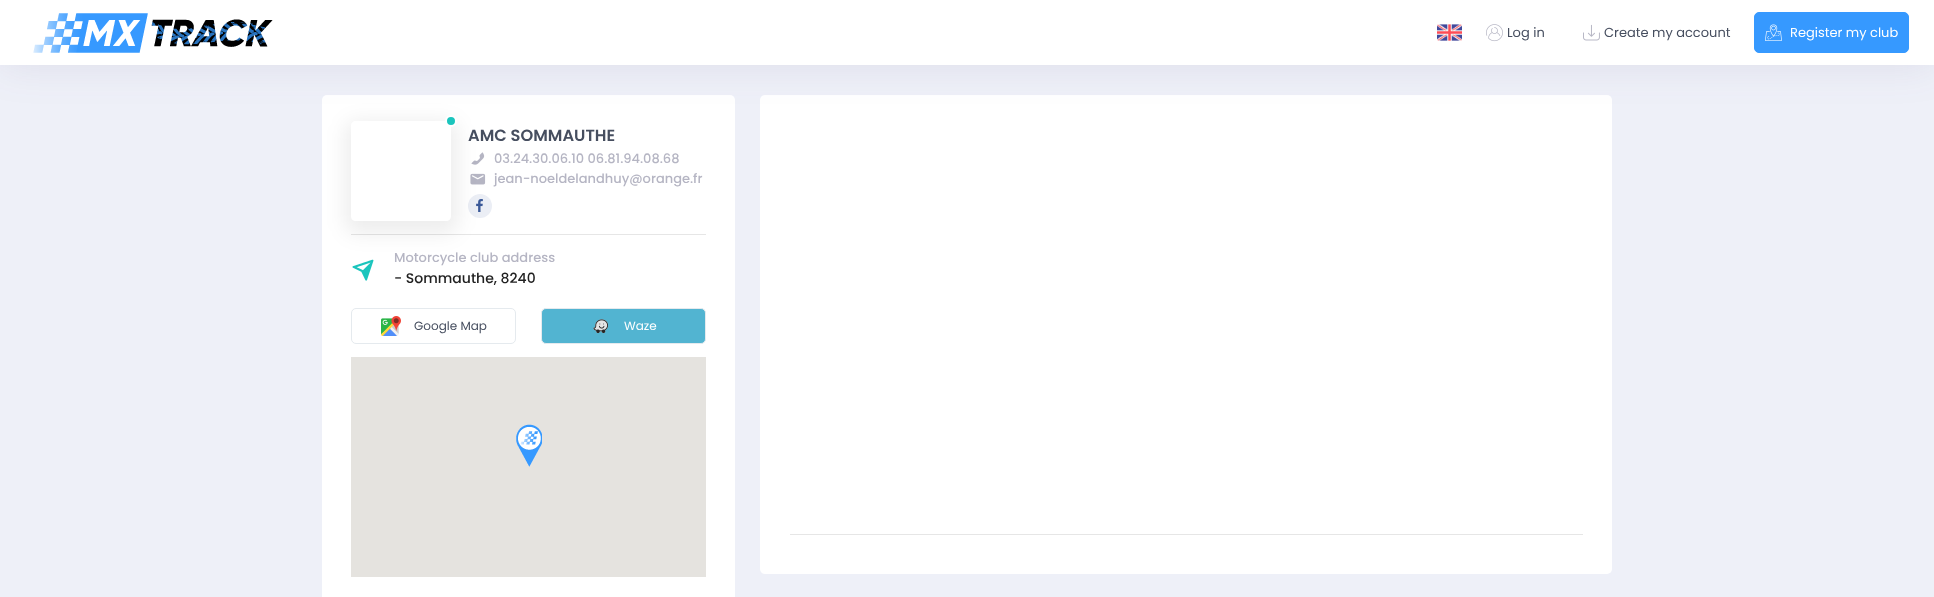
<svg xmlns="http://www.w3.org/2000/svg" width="1934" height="597">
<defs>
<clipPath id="clip1"><path d="M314 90h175v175h-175zm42 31h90c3 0 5 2 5 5v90c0 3-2 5-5 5h-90c-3 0-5-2-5-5v-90c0-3 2-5 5-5z" clip-rule="evenodd"/></clipPath>
</defs>
<rect width="100%" height="100%" fill="#eef0f8"/>
<rect x="322" y="95" width="413" height="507" rx="5" fill="#fff"/>
<image x="471" y="152" width="14" height="13" href="media/6.png"/>
<image x="470" y="173" width="16" height="12" href="media/7.png"/>
<circle cx="480" cy="206" r="12" fill="#ebeef5"/>
<image x="476" y="199" width="7" height="13" href="media/8.png"/>
<rect x="351" y="234" width="355" height="1" fill="#e6e6e6"/>
<image x="352" y="259" width="22" height="22" href="media/9.png"/>
<g clip-path="url(#clip1)">
<rect x="345" y="121" width="113" height="113" rx="12" fill="#00000012" filter="blur(10px)"/>
</g>
<circle cx="451" cy="121" r="5" fill="#1bc5bd" stroke="#fff" stroke-width="2"/>
<rect x="760" y="95" width="852" height="479" rx="5" fill="#fff"/>
<rect width="1934" height="65" fill="#523f691a" filter="blur(20px)"/>
<rect width="1934" height="65" fill="#fff"/>
<image x="33" y="13" width="240" height="40" href="media/1.png"/>
<image x="1437" y="24" width="25" height="17" href="media/2.png"/>
<image x="1486" y="24" width="17" height="18" href="media/3.png"/>
<text x="1507" y="37" style="font-family:Poppins;font-size:13px;fill:#464e5f">Log in</text>
<image x="1583" y="24" width="17" height="17" href="media/4.png"/>
<text x="1604" y="37" style="font-family:Poppins;font-size:13px;fill:#464e5f">Create my account</text>
<rect x="1754.5" y="12.5" width="154" height="40" rx="4.5" fill="#3699ff" stroke="#3699ff"/>
<image x="1765" y="24" width="17" height="17" href="media/5.png"/>
<text x="1790" y="37" style="font-family:Poppins;font-size:13px;fill:#fff">Register my club</text>
<text x="468" y="141" style="font-family:Poppins;font-size:16.25px;font-weight:600;fill:#464e5f">AMC SOMMAUTHE</text>
<text x="494" y="163" style="font-family:Poppins;font-size:13px;font-weight:500;fill:#b5b5c3">03.24.30.06.10 06.81.94.08.68</text>
<text x="494" y="183" style="font-family:Poppins;font-size:13px;font-weight:500;fill:#b5b5c3">jean-noeldelandhuy@orange.fr</text>
<text x="394" y="262" style="font-family:Poppins;font-size:13px;font-weight:500;fill:#b5b5c3">Motorcycle club address</text>
<text x="394" y="283" style="font-family:Poppins;font-size:14px;font-weight:500;fill:#212121">- Sommauthe, 8240</text>
<rect x="351.5" y="308.5" width="164" height="35" rx="4.5" fill="none" stroke="#e5eaee"/>
<image x="381" y="316" width="20" height="20" href="media/10.png"/>
<text x="414" y="330" style="font-family:Poppins;font-size:12px;fill:#464e5f">Google Map</text>
<rect x="541.5" y="308.5" width="164" height="35" rx="4.5" fill="#52b4d1" stroke="#e5eaee"/>
<image x="593" y="319" width="15" height="15" href="media/11.png"/>
<text x="624" y="330" style="font-family:Poppins;font-size:12px;fill:#fff">Waze</text>
<rect x="351" y="357" width="355" height="220" fill="#e5e3df"/>
<image x="516" y="424" width="26" height="43" href="media/12.png"/>
<rect x="790" y="534" width="793" height="1" fill="#e6e6e6"/>
</svg>
